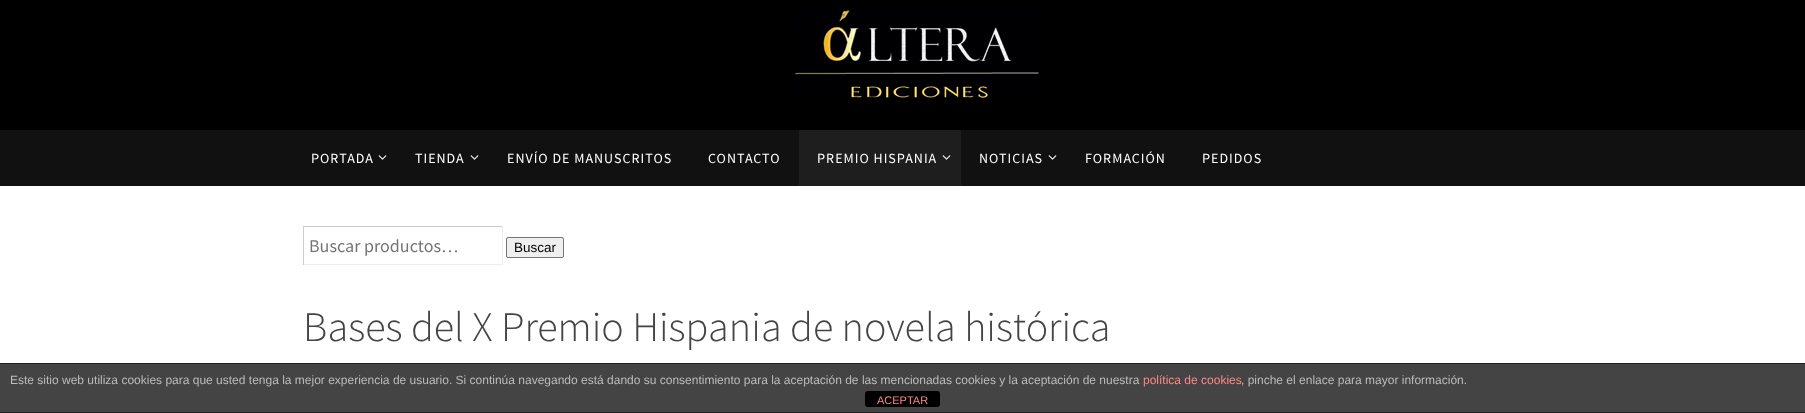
<svg xmlns="http://www.w3.org/2000/svg" width="1805" height="413">
<rect width="100%" height="100%" fill="#000"/>
<image x="795" y="10" width="244" height="88" href="media/1.png"/>
<rect y="130" width="1805" height="56" fill="#111"/>
<text x="311" y="163" style="font-family:Source Sans Pro;font-size:14px;letter-spacing:1px;fill:#fff">PORTADA</text>
<image x="378" y="155" width="9" height="5" href="media/2.png"/>
<text x="415" y="163" style="font-family:Source Sans Pro;font-size:14px;letter-spacing:1px;fill:#fff">TIENDA</text>
<image x="470" y="155" width="9" height="5" href="media/2.png"/>
<text x="507" y="163" style="font-family:Source Sans Pro;font-size:14px;letter-spacing:1px;fill:#fff">ENVÍO DE MANUSCRITOS</text>
<text x="708" y="163" style="font-family:Source Sans Pro;font-size:14px;letter-spacing:1px;fill:#fff">CONTACTO</text>
<rect x="799" y="130" width="162" height="56" fill="#1e1e1e"/>
<text x="817" y="163" style="font-family:Source Sans Pro;font-size:14px;letter-spacing:1px;fill:#fff">PREMIO HISPANIA</text>
<image x="942" y="155" width="9" height="5" href="media/3.png"/>
<text x="979" y="163" style="font-family:Source Sans Pro;font-size:14px;letter-spacing:1px;fill:#fff">NOTICIAS</text>
<image x="1048" y="155" width="9" height="5" href="media/2.png"/>
<text x="1085" y="163" style="font-family:Source Sans Pro;font-size:14px;letter-spacing:1px;fill:#fff">FORMACIÓN</text>
<text x="1202" y="163" style="font-family:Source Sans Pro;font-size:14px;letter-spacing:1px;fill:#fff">PEDIDOS</text>
<rect y="186" width="1805" height="177" fill="#fff"/>
<rect x="303" y="226" width="200" height="1" fill="#ccc"/>
<rect x="502" y="226" width="1" height="39" fill="#eee"/>
<rect x="303" y="264" width="200" height="1" fill="#eee"/>
<rect x="303" y="226" width="1" height="39" fill="#ccc"/>
<text x="309" y="252" style="font-family:Source Sans Pro;font-size:18px;fill:#757575">Buscar productos</text>
<text x="441" y="252" style="font-family:Liberation Serif;font-size:18px;fill:#757575">…</text>
<rect x="506.5" y="237.5" width="57" height="20" rx="1.5" fill="#efefef" stroke="#767676"/>
<text x="514" y="252" style="font-family:Liberation Sans;font-size:13.5px;fill:#000">Buscar</text>
<text x="303" y="341" style="font-family:Source Sans Pro;font-size:42px;font-weight:300;fill:#444">Bases del X Premio Hispania de novela histórica</text>
<rect y="364" width="1805" height="48" fill="#444"/>
<rect y="363" width="1805" height="1" fill="#222"/>
<rect y="412" width="1805" height="1" fill="#222"/>
<text x="10" y="384" style="font-family:Liberation Sans;font-size:12px;fill:#bbb">Este sitio web utiliza cookies para que usted tenga la mejor experiencia de usuario. Si continúa navegando está dando su consentimiento para la aceptación de las mencionadas cookies y la aceptación de nuestra</text>
<text x="1143" y="384" style="font-family:Liberation Sans;font-size:12px;fill:#f88">política de cookies</text>
<text x="1241" y="384" style="font-family:Liberation Sans;font-size:12px;fill:#bbb">, pinche el enlace para mayor información.</text>
<rect x="865" y="391" width="75" height="16" rx="3" fill="#000"/>
<text x="877" y="404" style="font-family:Liberation Sans;font-size:11px;fill:#f88">ACEPTAR</text>
</svg>
